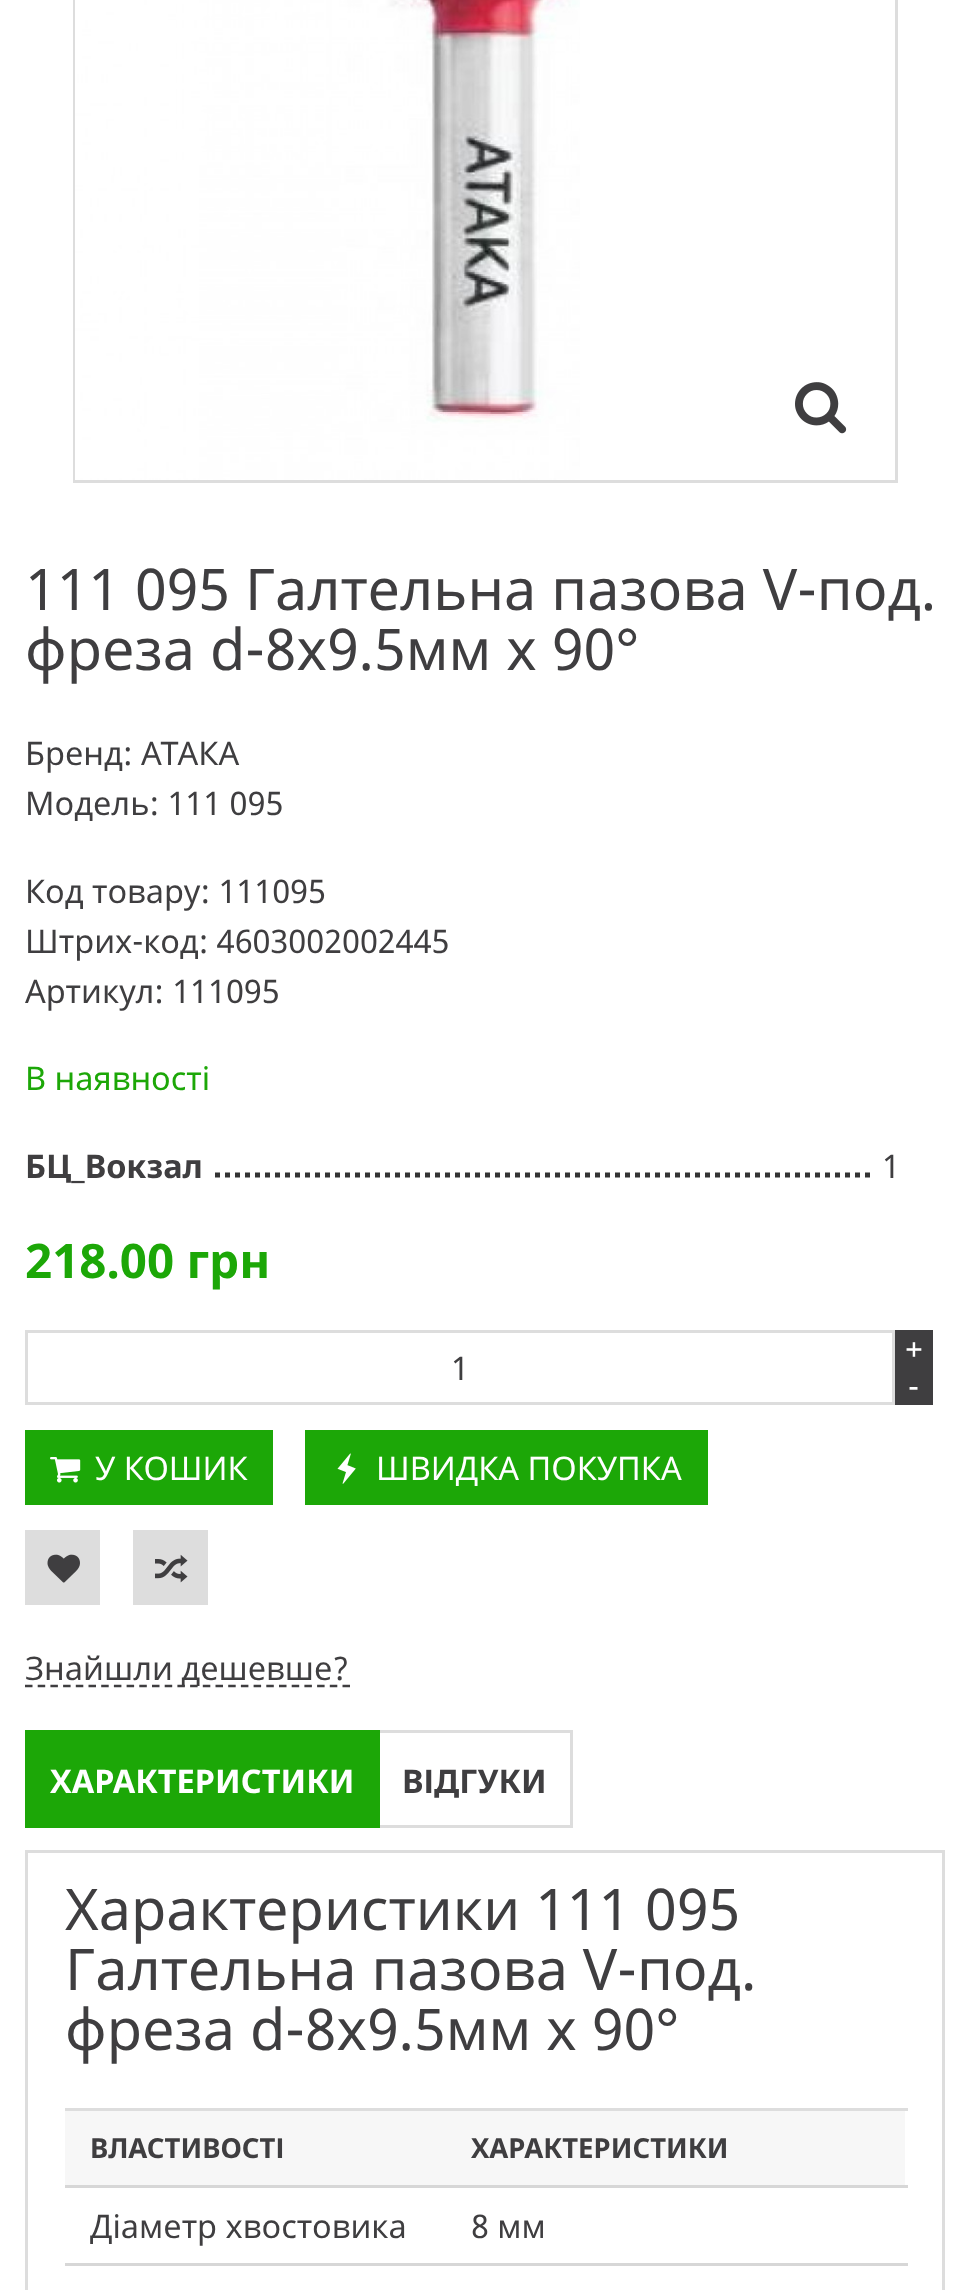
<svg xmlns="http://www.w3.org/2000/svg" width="970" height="2290">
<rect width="100%" height="100%" fill="#fff"/>
<rect x="74.5" y="-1.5" width="822" height="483" fill="none" stroke="#ddd" stroke-width="3"/>
<image x="75" y="0" width="505" height="480" href="media/1.png"/>
<image x="795" y="382" width="52" height="52" href="media/2.png"/>
<text x="25" y="610" style="font-family:Noto Sans;font-size:57.5px;fill:#3f3e40">111 095 Галтельна пазова V-под.</text>
<text x="25" y="670" style="font-family:Noto Sans;font-size:57.5px;fill:#3f3e40">фреза d-8x9.5мм x 90°</text>
<text x="25" y="765" style="font-family:Noto Sans;font-size:32.5px;fill:#3f3e40">Бренд: АТАКА</text>
<text x="25" y="815" style="font-family:Noto Sans;font-size:32.5px;fill:#3f3e40">Модель: 111 095</text>
<text x="25" y="903" style="font-family:Noto Sans;font-size:32.5px;fill:#3f3e40">Код товару: 111095</text>
<text x="25" y="953" style="font-family:Noto Sans;font-size:32.5px;fill:#3f3e40">Штрих-код: 4603002002445</text>
<text x="25" y="1003" style="font-family:Noto Sans;font-size:32.5px;fill:#3f3e40">Артикул: 111095</text>
<text x="25" y="1090" style="font-family:Noto Sans;font-size:32.5px;fill:#1ca707">В наявності</text>
<text x="25" y="1178" style="font-family:Noto Sans;font-size:32.5px;font-weight:bold;fill:#3f3e40">БЦ_Вокзал</text>
<path d="M215 1175h655" fill="none" stroke="#333" stroke-width="5" stroke-dasharray="5 5"/>
<text x="882" y="1178" style="font-family:Noto Sans;font-size:32.5px;fill:#3f3e40">1</text>
<text x="25" y="1278" style="font-family:Noto Sans;font-size:47.5px;font-weight:bold;fill:#1ca707">218.00 грн</text>
<rect x="895" y="1330" width="38" height="75" fill="#3f3e40"/>
<text x="905" y="1360" style="font-family:Noto Sans;font-size:32.5px;fill:#fff">+</text>
<rect x="26.5" y="1331.5" width="867" height="72" fill="none" stroke="#ddd" stroke-width="3"/>
<text x="451" y="1380" style="font-family:Noto Sans;font-size:32.5px;fill:#3f3e40">1</text>
<text x="908" y="1398" style="font-family:Noto Sans;font-size:32.5px;fill:#fff">-</text>
<rect x="25" y="1430" width="248" height="75" fill="#1ca707"/>
<image x="50" y="1457" width="31" height="26" href="media/3.png"/>
<text x="95" y="1480" style="font-family:Noto Sans;font-size:32.5px;fill:#fff">У КОШИК</text>
<rect x="305" y="1430" width="403" height="75" fill="#1ca707"/>
<image x="337" y="1453" width="19" height="31" href="media/4.png"/>
<text x="376" y="1480" style="font-family:Noto Sans;font-size:32.5px;fill:#fff">ШВИДКА ПОКУПКА</text>
<rect x="25" y="1530" width="75" height="75" fill="#ddd"/>
<image x="47" y="1554" width="33" height="29" href="media/5.png"/>
<rect x="133" y="1530" width="75" height="75" fill="#ddd"/>
<image x="155" y="1554" width="33" height="29" href="media/6.png"/>
<text x="25" y="1680" style="font-family:Noto Sans;font-size:32.5px;fill:#3f3e40">Знайшли дешевше?</text>
<path d="M25 1686h325" fill="none" stroke="#3f3e40" stroke-width="2.5" stroke-dasharray="7.5 5.2"/>
<rect x="25" y="1730" width="355" height="98" fill="#1ca707"/>
<text x="50" y="1793" style="font-family:Noto Sans;font-size:32.5px;font-weight:bold;fill:#fff">ХАРАКТЕРИСТИКИ</text>
<rect x="380" y="1730" width="193" height="3" fill="#ddd"/>
<rect x="570" y="1730" width="3" height="98" fill="#ddd"/>
<rect x="380" y="1825" width="193" height="3" fill="#ddd"/>
<text x="402" y="1793" style="font-family:Noto Sans;font-size:32.5px;font-weight:bold;fill:#3f3e40">ВІДГУКИ</text>
<rect x="26.5" y="1851.5" width="917" height="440" fill="none" stroke="#ddd" stroke-width="3"/>
<text x="65" y="1930" style="font-family:Noto Sans;font-size:57.5px;fill:#3f3e40">Характеристики 111 095</text>
<text x="65" y="1990" style="font-family:Noto Sans;font-size:57.5px;fill:#3f3e40">Галтельна пазова V-под.</text>
<text x="65" y="2050" style="font-family:Noto Sans;font-size:57.5px;fill:#3f3e40">фреза d-8x9.5мм x 90°</text>
<rect x="65" y="2111" width="840" height="74" fill="#f7f7f7"/>
<text x="90" y="2158" style="font-family:Noto Sans;font-size:27.5px;font-weight:bold;fill:#3f3e40">ВЛАСТИВОСТІ</text>
<rect x="65" y="2108" width="843" height="3" fill="#ddd"/>
<rect x="65" y="2185" width="843" height="3" fill="#d7d7d7"/>
<text x="471" y="2158" style="font-family:Noto Sans;font-size:27.5px;font-weight:bold;fill:#3f3e40">ХАРАКТЕРИСТИКИ</text>
<text x="90" y="2238" style="font-family:Noto Sans;font-size:32.5px;fill:#3f3e40">Діаметр хвостовика</text>
<rect x="65" y="2263" width="843" height="3" fill="#d7d7d7"/>
<text x="471" y="2238" style="font-family:Noto Sans;font-size:32.5px;fill:#3f3e40">8 мм</text>
</svg>
